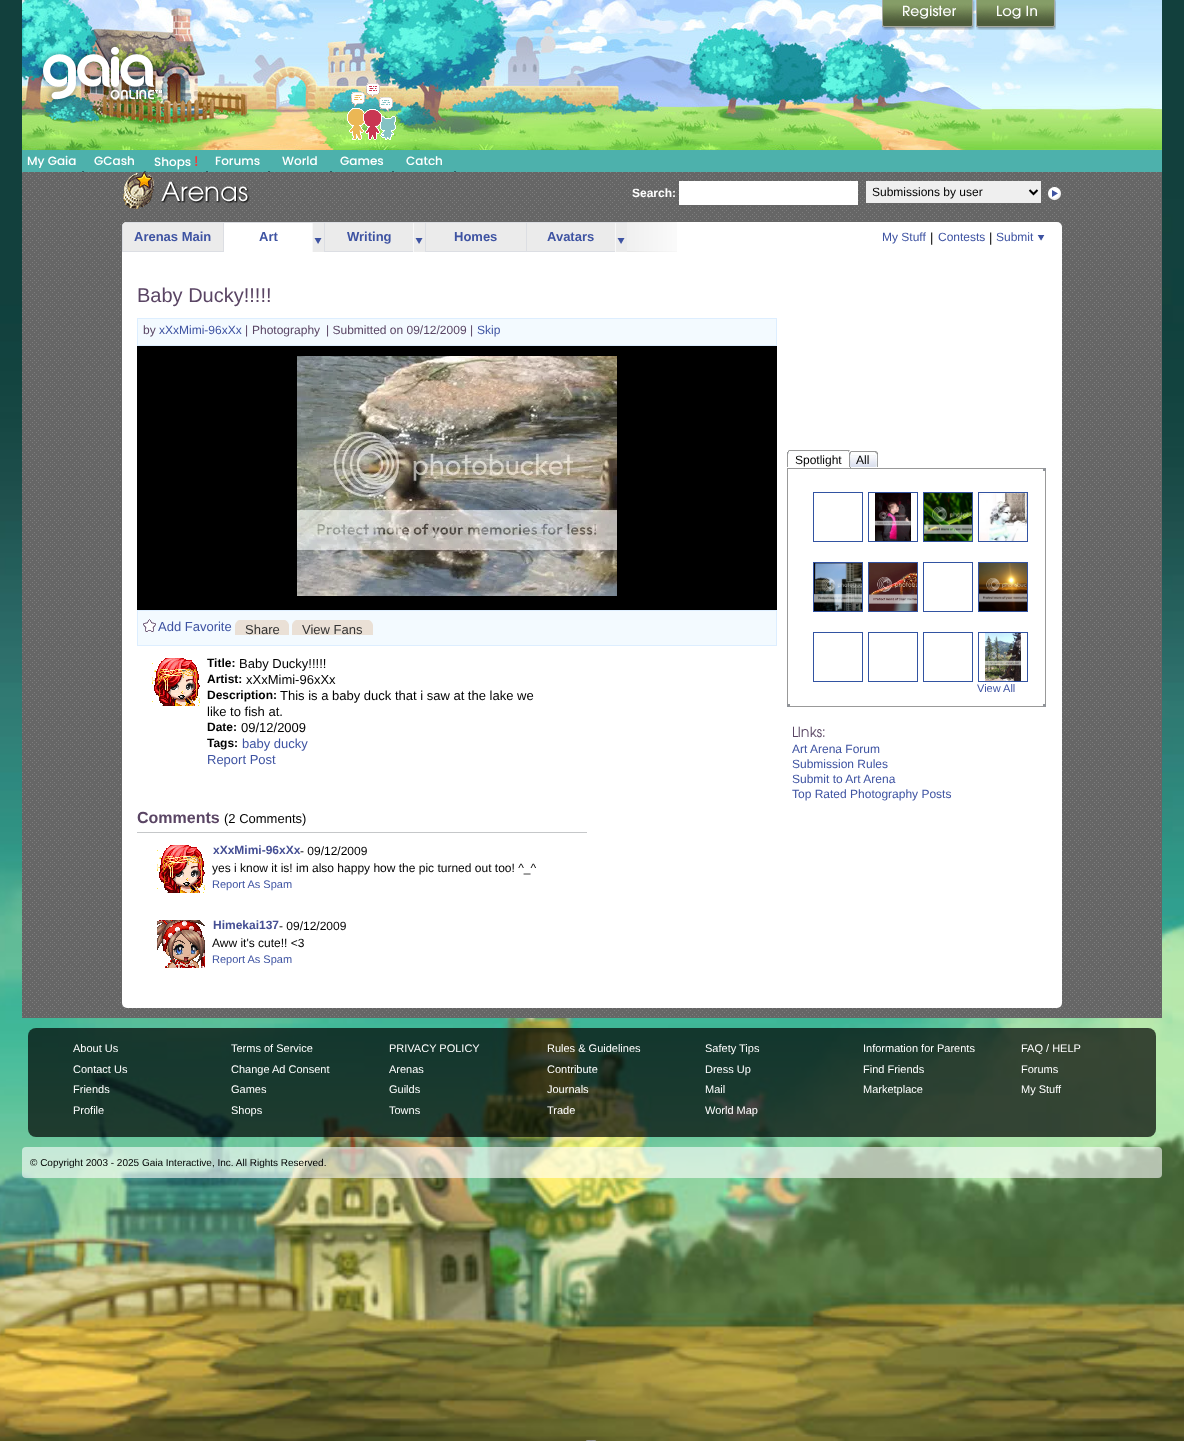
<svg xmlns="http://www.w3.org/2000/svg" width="1184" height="1441">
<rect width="100%" height="100%" fill="#12403d"/>
<image x="0" y="86" width="1184" height="1355" href="media/1.png"/>
<image x="992" y="0" width="170" height="150" href="media/2.png"/>
<image x="22" y="0" width="970" height="150" href="media/3.png"/>
<image x="882" y="0" width="93" height="30" href="media/4.png"/>
<image x="976" y="0" width="80" height="30" href="media/5.png"/>
<image x="43" y="46" width="119" height="54" href="media/6.png"/>
<image x="347" y="83" width="49" height="57" href="media/7.png"/>
<rect x="22" y="150" width="1140" height="22" fill="#4db1ac"/>
<text x="27" y="165" style="font-family:Poppins;font-size:12px;font-weight:500;fill:#fff">My Gaia</text>
<text x="94" y="165" style="font-family:Poppins;font-size:12px;font-weight:500;fill:#fff">GCash</text>
<text x="154" y="166" style="font-family:Poppins;font-size:12px;font-weight:500;fill:#fff">Shops</text>
<text x="194" y="166" style="font-family:Poppins;font-size:14px;font-weight:500;fill:#f33">!</text>
<text x="215" y="165" style="font-family:Poppins;font-size:12px;font-weight:500;fill:#fff">Forums</text>
<text x="282" y="165" style="font-family:Poppins;font-size:12px;font-weight:500;fill:#fff">World</text>
<text x="340" y="165" style="font-family:Poppins;font-size:12px;font-weight:500;fill:#fff">Games</text>
<text x="406" y="165" style="font-family:Poppins;font-size:12px;font-weight:500;fill:#fff">Catch</text>
<rect x="82" y="171" width="2" height="1" fill="#265f62"/>
<rect x="144" y="171" width="2" height="1" fill="#265f62"/>
<rect x="206" y="171" width="2" height="1" fill="#265f62"/>
<rect x="268" y="171" width="2" height="1" fill="#265f62"/>
<rect x="330" y="171" width="2" height="1" fill="#265f62"/>
<rect x="392" y="171" width="2" height="1" fill="#265f62"/>
<rect x="454" y="171" width="2" height="1" fill="#265f62"/>
<image x="22" y="172" width="1140" height="846" href="media/8.png"/>
<image x="123" y="172" width="127" height="37" href="media/9.png"/>
<text x="632" y="197" style="font-family:Liberation Sans;font-size:12px;font-weight:bold;fill:#fff">Search:</text>
<rect x="679" y="181" width="179" height="24" fill="#fff"/>
<rect x="866" y="181" width="175" height="22" fill="#efefef"/>
<path d="M1029.5 190l4 4l4-4" fill="none" stroke="#000" stroke-width="2"/>
<text x="872" y="196" style="font-family:Liberation Sans;font-size:12px;fill:#000">Submissions by user</text>
<image x="1048" y="187" width="13" height="14" href="media/10.png"/>
<rect x="122" y="222" width="940" height="786" rx="5" fill="#fff"/>
<path d="M127 222h97v30h-102v-25c0-3 2-5 5-5z" fill="#ebebeb"/>
<path d="M127 222l-3 1h99v28h-100v-27c-1 1-1 2-1 3v25h102v-30z" fill="#dcdee3"/>
<text x="134" y="241" style="font-family:Liberation Sans;font-size:13px;font-weight:bold;fill:#3e53a2">Arenas Main</text>
<rect x="223" y="222" width="102" height="1" fill="#dcdee3"/>
<text x="259" y="241" style="font-family:Liberation Sans;font-size:13px;font-weight:bold;fill:#3e53a2">Art</text>
<image x="312" y="223" width="12" height="29" href="media/11.png"/>
<rect x="325" y="223" width="88" height="28" fill="#ebebeb"/>
<rect x="324.5" y="222.5" width="101" height="29" fill="none" stroke="#dcdee3"/>
<text x="347" y="241" style="font-family:Liberation Sans;font-size:13px;font-weight:bold;fill:#3e53a2">Writing</text>
<image x="413" y="223" width="12" height="29" href="media/11.png"/>
<rect x="425.5" y="222.5" width="101" height="29" fill="#ebebeb" stroke="#dcdee3"/>
<text x="454" y="241" style="font-family:Liberation Sans;font-size:13px;font-weight:bold;fill:#3e53a2">Homes</text>
<rect x="527" y="223" width="88" height="28" fill="#ebebeb"/>
<rect x="526" y="222" width="101" height="1" fill="#dcdee3"/>
<rect x="526" y="251" width="89" height="1" fill="#dcdee3"/>
<text x="547" y="241" style="font-family:Liberation Sans;font-size:13px;font-weight:bold;fill:#3e53a2">Avatars</text>
<image x="615" y="223" width="12" height="29" href="media/11.png"/>
<image x="627" y="222" width="50" height="30" href="media/12.png"/>
<text x="137" y="302" style="font-family:Liberation Sans;font-size:20px;fill:#5a4564">Baby Ducky!!!!!</text>
<rect x="137.5" y="318.5" width="639" height="27" fill="#f3faff" stroke="#def"/>
<text x="143" y="334" style="font-family:Liberation Sans;font-size:12px;fill:#5a4564">by</text>
<text x="159" y="334" style="font-family:Liberation Sans;font-size:12px;fill:#3e53a2">xXxMimi-96xXx</text>
<text x="245" y="334" style="font-family:Liberation Sans;font-size:12px;fill:#5a4564">|</text>
<text x="252" y="334" style="font-family:Liberation Sans;font-size:12px;fill:#5a4564">Photography</text>
<text x="326" y="334" style="font-family:Liberation Sans;font-size:12px;fill:#5a4564">| Submitted on 09/12/2009 |</text>
<text x="477" y="334" style="font-family:Liberation Sans;font-size:12px;fill:#3e53a2">Skip</text>
<rect x="137" y="346" width="640" height="264" fill="#000"/>
<image x="297" y="356" width="320" height="240" href="media/13.png"/>
<rect x="137.5" y="610.5" width="639" height="35" fill="#f3faff" stroke="#def"/>
<image x="143" y="619" width="13" height="13" href="media/14.png"/>
<text x="158" y="631" style="font-family:Liberation Sans;font-size:13px;fill:#3e53a2">Add Favorite</text>
<image x="268" y="620" width="21" height="15" href="media/15.png"/>
<image x="235" y="620" width="33" height="15" href="media/16.png"/>
<text x="245" y="634" style="font-family:Liberation Sans;font-size:13px;fill:#333">Share</text>
<image x="351" y="620" width="22" height="15" href="media/17.png"/>
<image x="292" y="620" width="59" height="15" href="media/18.png"/>
<text x="302" y="634" style="font-family:Liberation Sans;font-size:13px;fill:#333">View Fans</text>
<image x="152" y="658" width="48" height="48" href="media/19.png"/>
<text x="207" y="667" style="font-family:Liberation Sans;font-size:12px;font-weight:bold;fill:#000">Title:</text>
<text x="239" y="668" style="font-family:Liberation Sans;font-size:13px;fill:#000">Baby Ducky!!!!!</text>
<text x="207" y="683" style="font-family:Liberation Sans;font-size:12px;font-weight:bold;fill:#000">Artist:</text>
<text x="246" y="684" style="font-family:Liberation Sans;font-size:13px;fill:#000">xXxMimi-96xXx</text>
<text x="207" y="699" style="font-family:Liberation Sans;font-size:12px;font-weight:bold;fill:#000">Description:</text>
<text x="280" y="700" style="font-family:Liberation Sans;font-size:13px;fill:#000">This is a baby duck that i saw at the lake we</text>
<text x="207" y="716" style="font-family:Liberation Sans;font-size:13px;fill:#000">like to fish at.</text>
<text x="207" y="731" style="font-family:Liberation Sans;font-size:12px;font-weight:bold;fill:#000">Date:</text>
<text x="241" y="732" style="font-family:Liberation Sans;font-size:13px;fill:#000">09/12/2009</text>
<text x="207" y="747" style="font-family:Liberation Sans;font-size:12px;font-weight:bold;fill:#000">Tags:</text>
<text x="242" y="748" style="font-family:Liberation Sans;font-size:13px;fill:#3e53a2">baby ducky</text>
<text x="207" y="764" style="font-family:Liberation Sans;font-size:13px;fill:#3e53a2">Report Post</text>
<text x="137" y="823" style="font-family:Liberation Sans;font-size:16px;font-weight:bold;fill:#5a4564">Comments</text>
<text x="224" y="823" style="font-family:Liberation Sans;font-size:13px;fill:#000">(2 Comments)</text>
<rect x="137" y="832" width="450" height="1" fill="#c5c7c9"/>
<image x="157" y="845" width="48" height="48" href="media/19.png"/>
<text x="213" y="854" style="font-family:Liberation Sans;font-size:12px;font-weight:bold;fill:#454f94">xXxMimi-96xXx</text>
<text x="300" y="855" style="font-family:Liberation Sans;font-size:12px;fill:#000">- 09/12/2009</text>
<text x="212" y="872" style="font-family:Liberation Sans;font-size:12px;fill:#000">yes i know it is! im also happy how the pic turned out too! ^_^</text>
<text x="212" y="888" style="font-family:Liberation Sans;font-size:11px;fill:#3e53a2">Report As Spam</text>
<image x="157" y="920" width="48" height="48" href="media/20.png"/>
<text x="213" y="929" style="font-family:Liberation Sans;font-size:12px;font-weight:bold;fill:#454f94">Himekai137</text>
<text x="279" y="930" style="font-family:Liberation Sans;font-size:12px;fill:#000">- 09/12/2009</text>
<text x="212" y="947" style="font-family:Liberation Sans;font-size:12px;fill:#000">Aww it's cute!! &lt;3</text>
<text x="212" y="963" style="font-family:Liberation Sans;font-size:11px;fill:#3e53a2">Report As Spam</text>
<text x="882" y="241" style="font-family:Liberation Sans;font-size:12px;fill:#3e53a2">My Stuff</text>
<text x="930" y="242" style="font-family:Liberation Sans;font-size:13px;fill:#000">|</text>
<text x="938" y="241" style="font-family:Liberation Sans;font-size:12px;fill:#3e53a2">Contests</text>
<text x="989" y="242" style="font-family:Liberation Sans;font-size:13px;fill:#000">|</text>
<text x="996" y="241" style="font-family:Liberation Sans;font-size:12px;fill:#3e53a2">Submit</text>
<image x="1037" y="235" width="8" height="6" href="media/21.png"/>
<image x="787" y="450" width="2" height="17" href="media/22.png"/>
<image x="789" y="450" width="62" height="18" href="media/23.png"/>
<text x="795" y="464" style="font-family:Liberation Sans;font-size:12px;fill:#000">Spotlight</text>
<image x="849" y="451" width="2" height="16" href="media/24.png"/>
<image x="851" y="451" width="27" height="16" href="media/25.png"/>
<text x="856" y="464" style="font-family:Liberation Sans;font-size:12px;fill:#000">All</text>
<rect x="787.5" y="468.5" width="258" height="238" fill="none" stroke="#999"/>
<rect x="1043" y="468" width="3" height="3" fill="#919499"/>
<rect x="813.5" y="492.5" width="49" height="49" fill="none" stroke="#3253a2"/>
<rect x="868.5" y="492.5" width="49" height="49" fill="none" stroke="#3253a2"/>
<image x="875" y="493" width="36" height="48" href="media/26.png"/>
<rect x="923.5" y="492.5" width="49" height="49" fill="none" stroke="#3253a2"/>
<image x="924" y="493" width="48" height="48" href="media/27.png"/>
<rect x="978.5" y="492.5" width="49" height="49" fill="none" stroke="#3253a2"/>
<image x="979" y="493" width="48" height="48" href="media/28.png"/>
<rect x="813.5" y="562.5" width="49" height="49" fill="none" stroke="#3253a2"/>
<image x="814" y="563" width="48" height="48" href="media/29.png"/>
<rect x="868.5" y="562.5" width="49" height="49" fill="none" stroke="#3253a2"/>
<image x="869" y="563" width="48" height="48" href="media/30.png"/>
<rect x="923.5" y="562.5" width="49" height="49" fill="none" stroke="#3253a2"/>
<rect x="978.5" y="562.5" width="49" height="49" fill="none" stroke="#3253a2"/>
<image x="979" y="563" width="48" height="48" href="media/31.png"/>
<rect x="813.5" y="632.5" width="49" height="49" fill="none" stroke="#3253a2"/>
<rect x="868.5" y="632.5" width="49" height="49" fill="none" stroke="#3253a2"/>
<rect x="923.5" y="632.5" width="49" height="49" fill="none" stroke="#3253a2"/>
<rect x="978.5" y="632.5" width="49" height="49" fill="none" stroke="#3253a2"/>
<image x="985" y="633" width="36" height="48" href="media/32.png"/>
<text x="977" y="692" style="font-family:Liberation Sans;font-size:11px;fill:#3e53a2">View All</text>
<rect x="787" y="704" width="3" height="3" fill="#919499"/>
<rect x="1043" y="704" width="3" height="3" fill="#919499"/>
<image x="793" y="726" width="32" height="12" href="media/33.png"/>
<text x="792" y="753" style="font-family:Liberation Sans;font-size:12px;fill:#3e53a2">Art Arena Forum</text>
<text x="792" y="768" style="font-family:Liberation Sans;font-size:12px;fill:#3e53a2">Submission Rules</text>
<text x="792" y="783" style="font-family:Liberation Sans;font-size:12px;fill:#3e53a2">Submit to Art Arena</text>
<text x="792" y="798" style="font-family:Liberation Sans;font-size:12px;fill:#3e53a2">Top Rated Photography Posts</text>
<rect x="28" y="1028" width="1128" height="109" rx="8" fill="#000000b3"/>
<text x="73" y="1052" style="font-family:Liberation Sans;font-size:11px;fill:#fff">About Us</text>
<text x="231" y="1052" style="font-family:Liberation Sans;font-size:11px;fill:#fff">Terms of Service</text>
<text x="389" y="1052" style="font-family:Liberation Sans;font-size:11px;fill:#fff">PRIVACY POLICY</text>
<text x="547" y="1052" style="font-family:Liberation Sans;font-size:11px;fill:#fff">Rules &amp; Guidelines</text>
<text x="705" y="1052" style="font-family:Liberation Sans;font-size:11px;fill:#fff">Safety Tips</text>
<text x="863" y="1052" style="font-family:Liberation Sans;font-size:11px;fill:#fff">Information for Parents</text>
<text x="1021" y="1052" style="font-family:Liberation Sans;font-size:11px;fill:#fff">FAQ / HELP</text>
<text x="73" y="1073" style="font-family:Liberation Sans;font-size:11px;fill:#fff">Contact Us</text>
<text x="231" y="1073" style="font-family:Liberation Sans;font-size:11px;fill:#fff">Change Ad Consent</text>
<text x="389" y="1073" style="font-family:Liberation Sans;font-size:11px;fill:#fff">Arenas</text>
<text x="547" y="1073" style="font-family:Liberation Sans;font-size:11px;fill:#fff">Contribute</text>
<text x="705" y="1073" style="font-family:Liberation Sans;font-size:11px;fill:#fff">Dress Up</text>
<text x="863" y="1073" style="font-family:Liberation Sans;font-size:11px;fill:#fff">Find Friends</text>
<text x="1021" y="1073" style="font-family:Liberation Sans;font-size:11px;fill:#fff">Forums</text>
<text x="73" y="1093" style="font-family:Liberation Sans;font-size:11px;fill:#fff">Friends</text>
<text x="231" y="1093" style="font-family:Liberation Sans;font-size:11px;fill:#fff">Games</text>
<text x="389" y="1093" style="font-family:Liberation Sans;font-size:11px;fill:#fff">Guilds</text>
<text x="547" y="1093" style="font-family:Liberation Sans;font-size:11px;fill:#fff">Journals</text>
<text x="705" y="1093" style="font-family:Liberation Sans;font-size:11px;fill:#fff">Mail</text>
<text x="863" y="1093" style="font-family:Liberation Sans;font-size:11px;fill:#fff">Marketplace</text>
<text x="1021" y="1093" style="font-family:Liberation Sans;font-size:11px;fill:#fff">My Stuff</text>
<text x="73" y="1114" style="font-family:Liberation Sans;font-size:11px;fill:#fff">Profile</text>
<text x="231" y="1114" style="font-family:Liberation Sans;font-size:11px;fill:#fff">Shops</text>
<text x="389" y="1114" style="font-family:Liberation Sans;font-size:11px;fill:#fff">Towns</text>
<text x="547" y="1114" style="font-family:Liberation Sans;font-size:11px;fill:#fff">Trade</text>
<text x="705" y="1114" style="font-family:Liberation Sans;font-size:11px;fill:#fff">World Map</text>
<rect x="22" y="1147" width="1140" height="31" rx="4" fill="#ffffff99"/>
<text x="30" y="1166" style="font-family:Liberation Sans;font-size:10px;fill:#000">© Copyright 2003 - 2025 Gaia Interactive, Inc. All Rights Reserved.</text>
<rect x="580.5" y="1440.5" width="21" height="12" rx="10.5" fill="none" stroke="#f7f7f7bf"/>
<rect x="580.5" y="1440.5" width="21" height="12" rx="10.5" fill="none" stroke="#888"/>
</svg>
